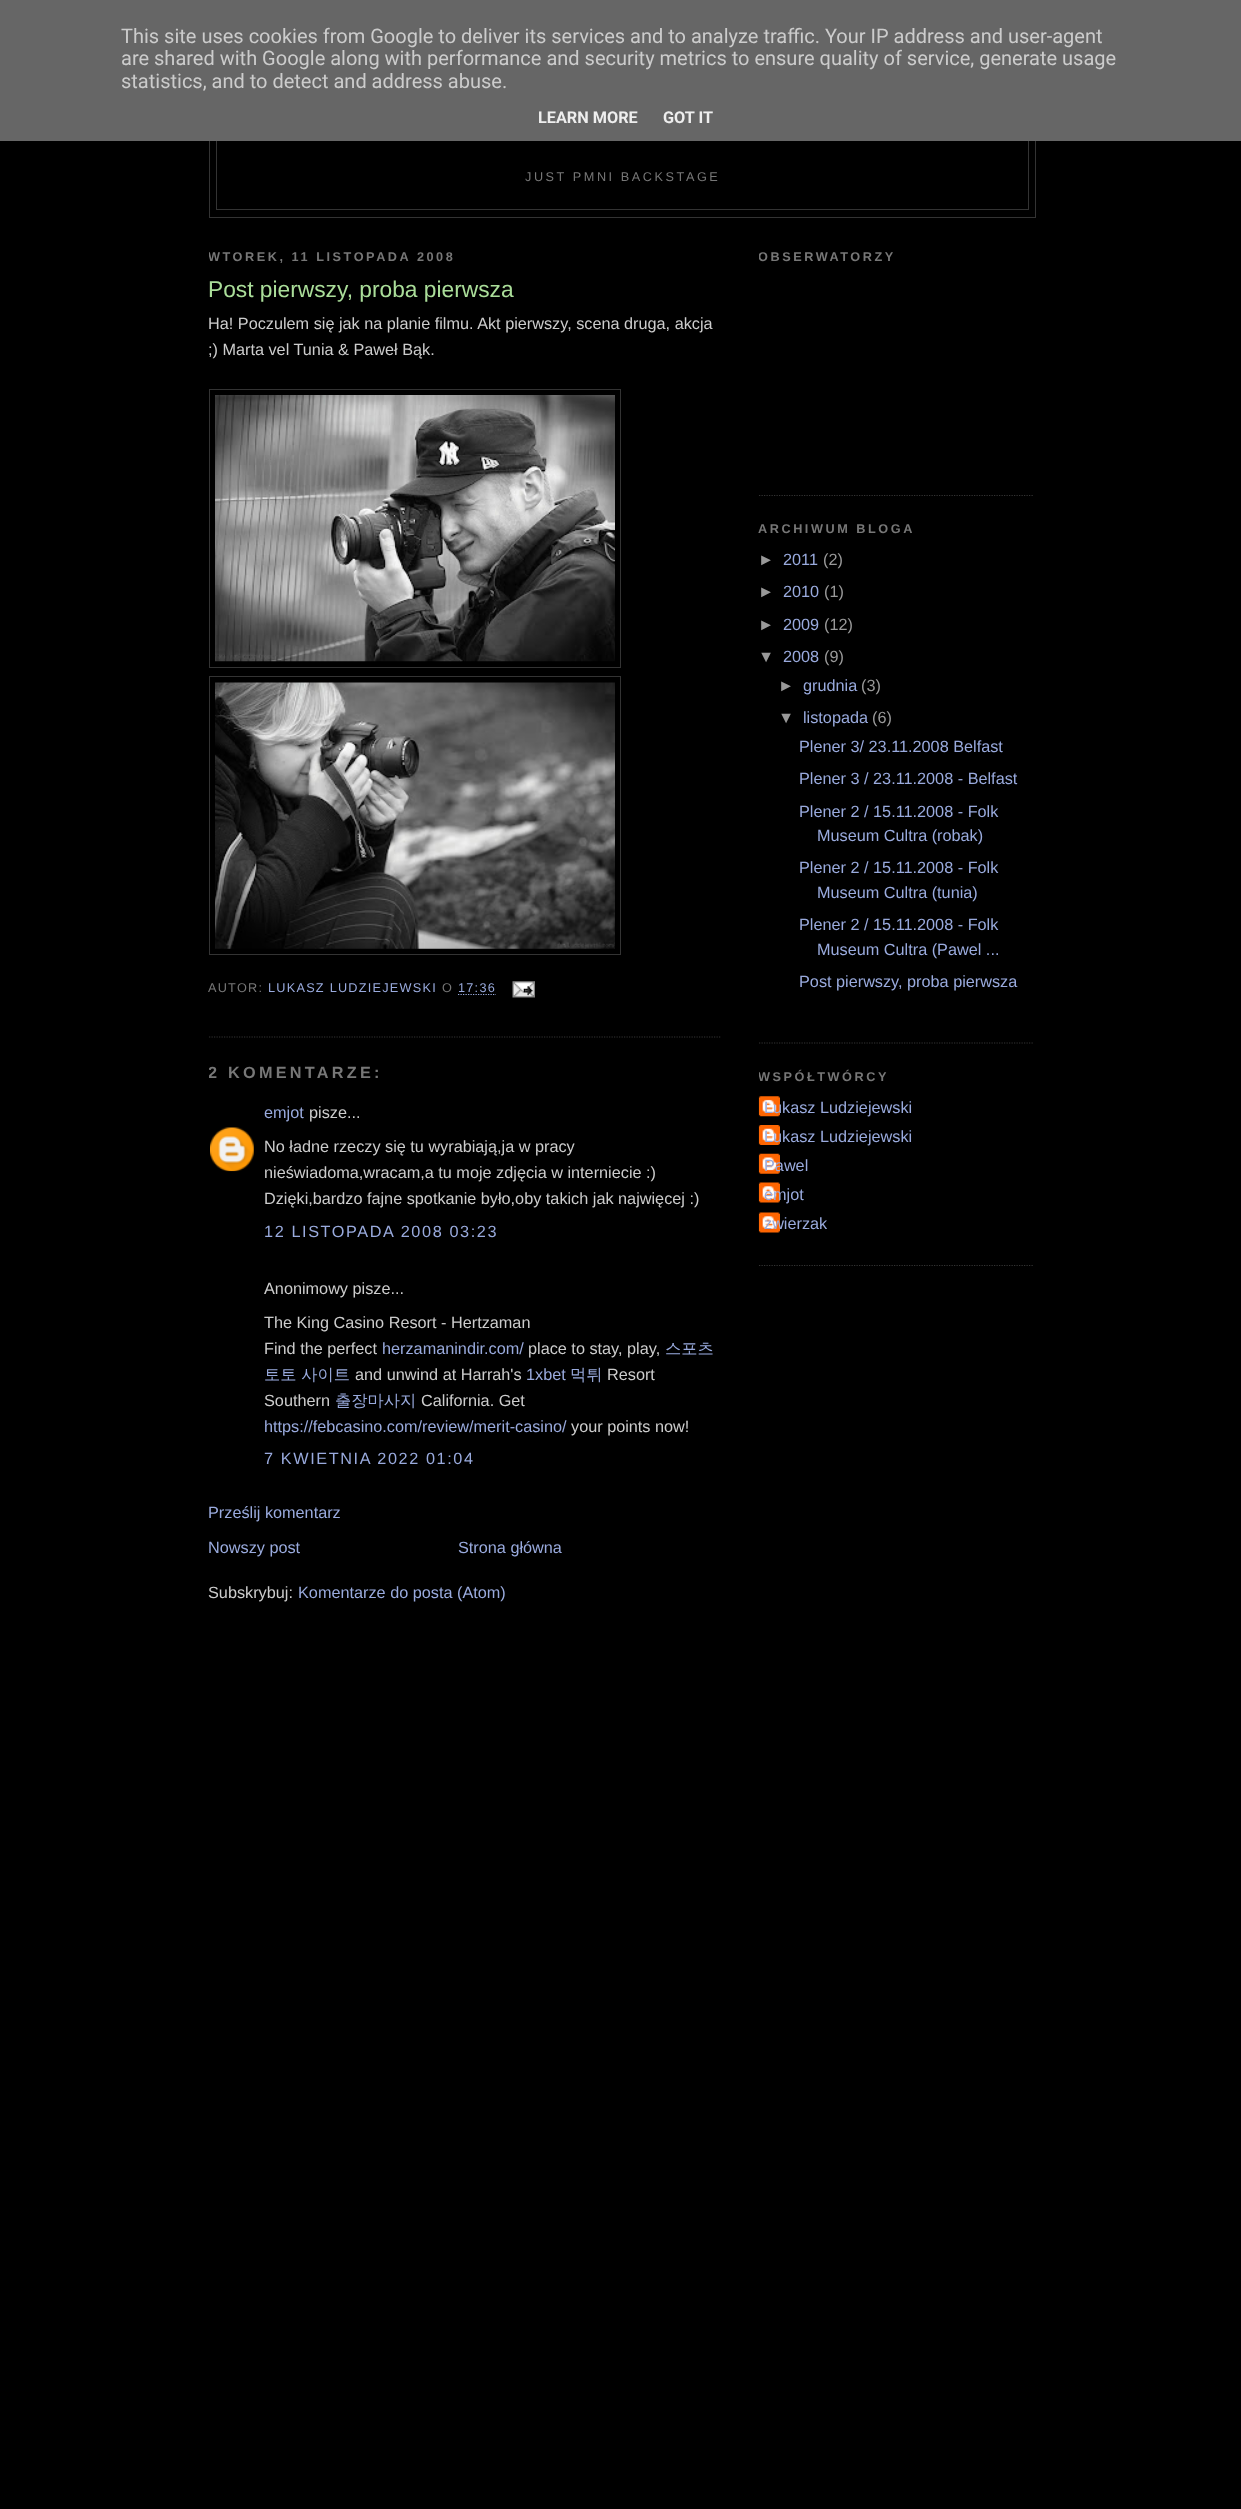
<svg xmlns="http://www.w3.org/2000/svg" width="1241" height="2509">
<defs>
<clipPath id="clip1"><rect x="209" y="230" width="512" height="1433"/></clipPath>
<clipPath id="clip2"><rect x="759" y="230" width="275" height="1061"/></clipPath>
</defs>
<rect width="100%" height="100%" fill="#000"/>
<rect x="209.5" y="50.5" width="826" height="167" fill="none" stroke="#333"/>
<rect x="216.5" y="58.5" width="812" height="151" fill="none" stroke="#333"/>
<rect width="1241" height="141" fill="#666"/>
<text x="121" y="43" style="font-family:Roboto;font-size:20px;fill:#ccc">This site uses cookies from Google to deliver its services and to analyze traffic. Your IP address and user-agent</text>
<text x="121" y="65" style="font-family:Roboto;font-size:20px;fill:#ccc">are shared with Google along with performance and security metrics to ensure quality of service, generate usage</text>
<text x="121" y="88" style="font-family:Roboto;font-size:20px;fill:#ccc">statistics, and to detect and address abuse.</text>
<text x="538" y="123" style="font-family:Roboto;font-size:16.25px;font-weight:bold;fill:#eee">LEARN MORE</text>
<text x="663" y="123" style="font-family:Roboto;font-size:16.25px;font-weight:bold;fill:#eee">GOT IT</text>
<text x="525" y="181" style="font-family:Liberation Sans;font-size:12.7px;letter-spacing:2.55px;fill:#777">JUST PMNI BACKSTAGE</text>
<g clip-path="url(#clip1)">
<text x="208" y="261" style="font-family:Liberation Sans;font-size:12.7px;font-weight:bold;letter-spacing:2.55px;fill:#777">WTOREK, 11 LISTOPADA 2008</text>
</g>
<path d="M209 1037h512" fill="none" stroke="#333" stroke-width="1.2" stroke-dasharray="1.25 1.25"/>
<text x="208" y="297" style="font-family:Liberation Sans;font-size:22.75px;fill:#ad9">Post pierwszy, proba pierwsza</text>
<text x="208" y="329" style="font-family:Liberation Sans;font-size:16.25px;fill:#ccc">Ha! Poczulem się jak na planie filmu. Akt pierwszy, scena druga, akcja</text>
<text x="208" y="355" style="font-family:Liberation Sans;font-size:16.25px;fill:#ccc">;) Marta vel Tunia &amp; Paweł Bąk.</text>
<rect x="209.5" y="389.5" width="411" height="278" fill="none" stroke="#333"/>
<image x="215" y="395" width="400" height="267" href="media/1.png"/>
<rect x="209.5" y="676.5" width="411" height="278" fill="none" stroke="#333"/>
<image x="215" y="682" width="400" height="267" href="media/2.png"/>
<text x="208" y="992" style="font-family:Liberation Sans;font-size:12.7px;letter-spacing:1.25px;fill:#777">AUTOR:</text>
<text x="268" y="992" style="font-family:Liberation Sans;font-size:12.7px;letter-spacing:1.25px;fill:#9ad">LUKASZ LUDZIEJEWSKI</text>
<text x="442" y="992" style="font-family:Liberation Sans;font-size:12.7px;letter-spacing:1.25px;fill:#777">O</text>
<text x="458" y="992" style="font-family:Liberation Sans;font-size:12.7px;letter-spacing:1.25px;fill:#9ad">17:36</text>
<path d="M458 994.5h38" fill="none" stroke="#9ad" stroke-width="1.2" stroke-dasharray="1.25 1.25"/>
<image x="512" y="981" width="23" height="17" href="media/3.png"/>
<g clip-path="url(#clip1)">
<text x="208" y="1078" style="font-family:Liberation Sans;font-size:16.25px;font-weight:bold;letter-spacing:3.25px;fill:#777">2 KOMENTARZE:</text>
</g>
<text x="264" y="1118" style="font-family:Liberation Sans;font-size:16.25px;fill:#9ad">emjot</text>
<text x="309" y="1118" style="font-family:Liberation Sans;font-size:16.25px;fill:#ccc">pisze...</text>
<image x="210" y="1127" width="44" height="45" href="media/4.png"/>
<text x="264" y="1152" style="font-family:Liberation Sans;font-size:16.25px;fill:#ccc">No ładne rzeczy się tu wyrabiają,ja w pracy</text>
<text x="264" y="1178" style="font-family:Liberation Sans;font-size:16.25px;fill:#ccc">nieświadoma,wracam,a tu moje zdjęcia w interniecie :)</text>
<text x="264" y="1204" style="font-family:Liberation Sans;font-size:16.25px;fill:#ccc">Dzięki,bardzo fajne spotkanie było,oby takich jak najwięcej :)</text>
<text x="264" y="1237" style="font-family:Liberation Sans;font-size:16.25px;letter-spacing:1.6px;fill:#9ad">12 LISTOPADA 2008 03:23</text>
<text x="264" y="1294" style="font-family:Liberation Sans;font-size:16.25px;fill:#ccc">Anonimowy pisze...</text>
<text x="264" y="1328" style="font-family:Liberation Sans;font-size:16.25px;fill:#ccc">The King Casino Resort - Hertzaman</text>
<text x="264" y="1354" style="font-family:Liberation Sans;font-size:16.25px;fill:#ccc">Find the perfect</text>
<text x="382" y="1354" style="font-family:Liberation Sans;font-size:16.25px;fill:#9ad">herzamanindir.com/</text>
<text x="528" y="1354" style="font-family:Liberation Sans;font-size:16.25px;fill:#ccc">place to stay, play,</text>
<text x="665" y="1354" style="font-family:WenQuanYi Zen Hei;font-size:16.25px;font-weight:500;fill:#9ad">스포츠</text>
<text x="264" y="1380" style="font-family:WenQuanYi Zen Hei;font-size:16.25px;font-weight:500;fill:#9ad">토토 사이트</text>
<text x="355" y="1380" style="font-family:Liberation Sans;font-size:16.25px;fill:#ccc">and unwind at Harrah's</text>
<text x="526" y="1380" style="font-family:Liberation Sans;font-size:16.25px;fill:#9ad">1xbet</text>
<text x="570" y="1380" style="font-family:WenQuanYi Zen Hei;font-size:16.25px;font-weight:500;fill:#9ad">먹튀</text>
<text x="607" y="1380" style="font-family:Liberation Sans;font-size:16.25px;fill:#ccc">Resort</text>
<text x="264" y="1406" style="font-family:Liberation Sans;font-size:16.25px;fill:#ccc">Southern</text>
<text x="335" y="1406" style="font-family:WenQuanYi Zen Hei;font-size:16.25px;font-weight:500;fill:#9ad">출장마사지</text>
<text x="421" y="1406" style="font-family:Liberation Sans;font-size:16.25px;fill:#ccc">California. Get</text>
<text x="264" y="1432" style="font-family:Liberation Sans;font-size:16.25px;fill:#9ad">https://febcasino.com/review/merit-casino/</text>
<text x="571" y="1432" style="font-family:Liberation Sans;font-size:16.25px;fill:#ccc">your points now!</text>
<text x="264" y="1464" style="font-family:Liberation Sans;font-size:16.25px;letter-spacing:1.6px;fill:#9ad">7 KWIETNIA 2022 01:04</text>
<text x="208" y="1518" style="font-family:Liberation Sans;font-size:16.25px;fill:#9ad">Prześlij komentarz</text>
<text x="208" y="1553" style="font-family:Liberation Sans;font-size:16.25px;fill:#9ad">Nowszy post</text>
<text x="458" y="1553" style="font-family:Liberation Sans;font-size:16.25px;fill:#9ad">Strona główna</text>
<text x="208" y="1598" style="font-family:Liberation Sans;font-size:16.25px;fill:#ccc">Subskrybuj:</text>
<text x="298" y="1598" style="font-family:Liberation Sans;font-size:16.25px;fill:#9ad">Komentarze do posta (Atom)</text>
<path d="M759 495.5h275" fill="none" stroke="#333" stroke-width="1.2" stroke-dasharray="1.25 1.25"/>
<g clip-path="url(#clip2)">
<text x="758" y="261" style="font-family:Liberation Sans;font-size:12.7px;font-weight:bold;letter-spacing:2.55px;fill:#777">OBSERWATORZY</text>
</g>
<path d="M759 1043h275" fill="none" stroke="#333" stroke-width="1.2" stroke-dasharray="1.25 1.25"/>
<text x="758" y="533" style="font-family:Liberation Sans;font-size:12.7px;font-weight:bold;letter-spacing:2.55px;fill:#777">ARCHIWUM BLOGA</text>
<text x="758" y="565" style="font-family:Liberation Sans;font-size:16.25px;fill:#999">►</text>
<text x="783" y="565" style="font-family:Liberation Sans;font-size:16.25px;fill:#9ad">2011</text>
<text x="823" y="565" style="font-family:Liberation Sans;font-size:16.25px;fill:#999">(2)</text>
<text x="758" y="597" style="font-family:Liberation Sans;font-size:16.25px;fill:#999">►</text>
<text x="783" y="597" style="font-family:Liberation Sans;font-size:16.25px;fill:#9ad">2010</text>
<text x="824" y="597" style="font-family:Liberation Sans;font-size:16.25px;fill:#999">(1)</text>
<text x="758" y="630" style="font-family:Liberation Sans;font-size:16.25px;fill:#999">►</text>
<text x="783" y="630" style="font-family:Liberation Sans;font-size:16.25px;fill:#9ad">2009</text>
<text x="824" y="630" style="font-family:Liberation Sans;font-size:16.25px;fill:#999">(12)</text>
<text x="758" y="662" style="font-family:Liberation Sans;font-size:16.25px;fill:#999">▼</text>
<text x="783" y="662" style="font-family:Liberation Sans;font-size:16.25px;fill:#9ad">2008</text>
<text x="824" y="662" style="font-family:Liberation Sans;font-size:16.25px;fill:#999">(9)</text>
<text x="778" y="691" style="font-family:Liberation Sans;font-size:16.25px;fill:#999">►</text>
<text x="803" y="691" style="font-family:Liberation Sans;font-size:16.25px;fill:#9ad">grudnia</text>
<text x="861" y="691" style="font-family:Liberation Sans;font-size:16.25px;fill:#999">(3)</text>
<text x="778" y="723" style="font-family:Liberation Sans;font-size:16.25px;fill:#999">▼</text>
<text x="803" y="723" style="font-family:Liberation Sans;font-size:16.25px;fill:#9ad">listopada</text>
<text x="872" y="723" style="font-family:Liberation Sans;font-size:16.25px;fill:#999">(6)</text>
<text x="799" y="752" style="font-family:Liberation Sans;font-size:16.25px;fill:#9ad">Plener 3/ 23.11.2008 Belfast</text>
<text x="799" y="784" style="font-family:Liberation Sans;font-size:16.25px;fill:#9ad">Plener 3 / 23.11.2008 - Belfast</text>
<text x="799" y="817" style="font-family:Liberation Sans;font-size:16.25px;fill:#9ad">Plener 2 / 15.11.2008 - Folk</text>
<text x="817" y="841" style="font-family:Liberation Sans;font-size:16.25px;fill:#9ad">Museum Cultra (robak)</text>
<text x="799" y="873" style="font-family:Liberation Sans;font-size:16.25px;fill:#9ad">Plener 2 / 15.11.2008 - Folk</text>
<text x="817" y="898" style="font-family:Liberation Sans;font-size:16.25px;fill:#9ad">Museum Cultra (tunia)</text>
<text x="799" y="930" style="font-family:Liberation Sans;font-size:16.25px;fill:#9ad">Plener 2 / 15.11.2008 - Folk</text>
<text x="817" y="955" style="font-family:Liberation Sans;font-size:16.25px;fill:#9ad">Museum Cultra (Pawel ...</text>
<text x="799" y="987" style="font-family:Liberation Sans;font-size:16.25px;fill:#9ad">Post pierwszy, proba pierwsza</text>
<path d="M759 1265.5h275" fill="none" stroke="#333" stroke-width="1.2" stroke-dasharray="1.25 1.25"/>
<g clip-path="url(#clip2)">
<text x="758" y="1081" style="font-family:Liberation Sans;font-size:12.7px;font-weight:bold;letter-spacing:2.55px;fill:#777">WSPÓŁTWÓRCY</text>
</g>
<image x="758" y="1096" width="22" height="21" href="media/5.png"/>
<text x="764" y="1113" style="font-family:Liberation Sans;font-size:16.25px;fill:#9ad">Lukasz Ludziejewski</text>
<image x="758" y="1125" width="22" height="20" href="media/6.png"/>
<text x="764" y="1142" style="font-family:Liberation Sans;font-size:16.25px;fill:#9ad">Lukasz Ludziejewski</text>
<image x="758" y="1153" width="22" height="21" href="media/7.png"/>
<text x="764" y="1171" style="font-family:Liberation Sans;font-size:16.25px;fill:#9ad">Pawel</text>
<image x="758" y="1182" width="22" height="21" href="media/8.png"/>
<text x="764" y="1200" style="font-family:Liberation Sans;font-size:16.25px;fill:#9ad">emjot</text>
<image x="758" y="1212" width="22" height="21" href="media/8.png"/>
<text x="764" y="1229" style="font-family:Liberation Sans;font-size:16.25px;fill:#9ad">zwierzak</text>
</svg>
